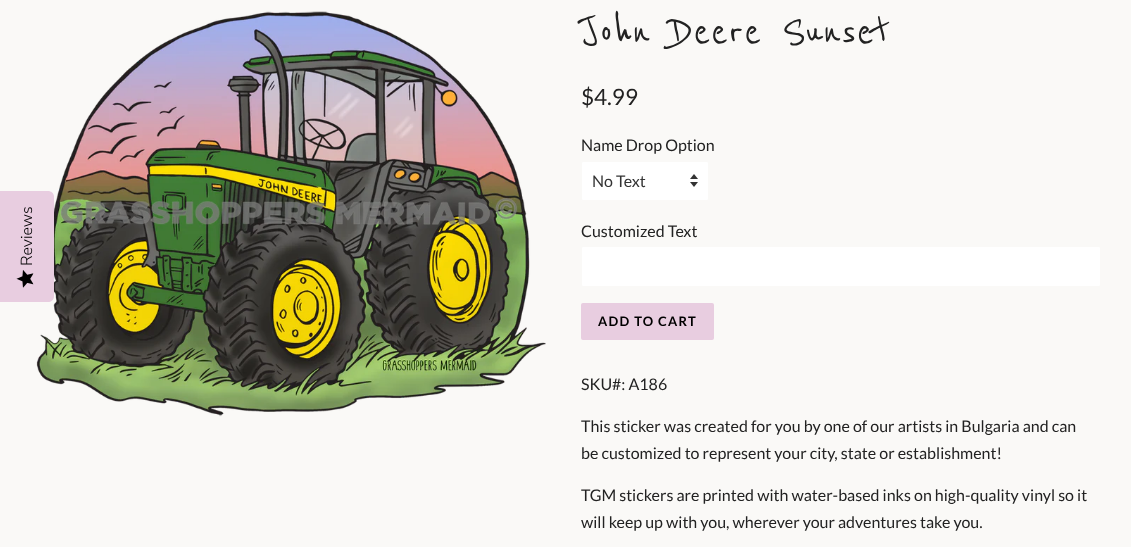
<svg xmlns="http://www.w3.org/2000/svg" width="1131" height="547">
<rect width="100%" height="100%" fill="#faf9f7"/>
<image x="36" y="11" width="510" height="406" href="media/2.png"/>
<path d="M0 302v-111h48c3 0 6 2 6 6v99c0 4-3 6-6 6z" fill="#e8cde0"/>
<text x="32" y="266" transform="rotate(-90 32 266)" style="font-family:Nunito Sans;font-size:16px;font-weight:300;fill:#000">Reviews</text>
<image x="16" y="270" width="18" height="18" href="media/1.png"/>
<text x="581" y="45" style="font-family:Reenie Beanie;font-size:50px;font-weight:500;fill:#222">John Deere Sunset</text>
<text x="581" y="105" style="font-family:Lato;font-size:22.5px;fill:#222">$4.99</text>
<text x="581" y="151" style="font-family:Lato;font-size:16px;fill:#222">Name Drop Option</text>
<rect x="581" y="161" width="128" height="40" rx="2" fill="#fff"/>
<image x="690" y="174" width="8" height="13" href="media/3.png"/>
<rect x="581.5" y="161.5" width="127" height="39" rx="1.5" fill="none" stroke="#faf9f7"/>
<text x="592" y="187" style="font-family:Lato;font-size:16px;fill:#333">No Text</text>
<text x="581" y="237" style="font-family:Lato;font-size:16px;fill:#222">Customized Text</text>
<rect x="581.5" y="246.5" width="519" height="40" rx="1.5" fill="#fff" stroke="#faf9f7"/>
<rect x="581" y="303" width="133" height="37" rx="2" fill="#e8cde0"/>
<text x="598" y="326" style="font-family:Lato;font-size:13px;font-weight:bold;letter-spacing:1.25px;fill:#000">ADD TO CART</text>
<text x="581" y="390" style="font-family:Lato;font-size:16px;fill:#222">SKU#: A186</text>
<text x="581" y="432" style="font-family:Lato;font-size:16px;fill:#222">This sticker was created for you by one of our artists in Bulgaria and can</text>
<text x="581" y="459" style="font-family:Lato;font-size:16px;fill:#222">be customized to represent your city, state or establishment!</text>
<text x="581" y="501" style="font-family:Lato;font-size:16px;fill:#222">TGM stickers are printed with water-based inks on high-quality vinyl so it</text>
<text x="581" y="528" style="font-family:Lato;font-size:16px;fill:#222">will keep up with you, wherever your adventures take you.</text>
</svg>
